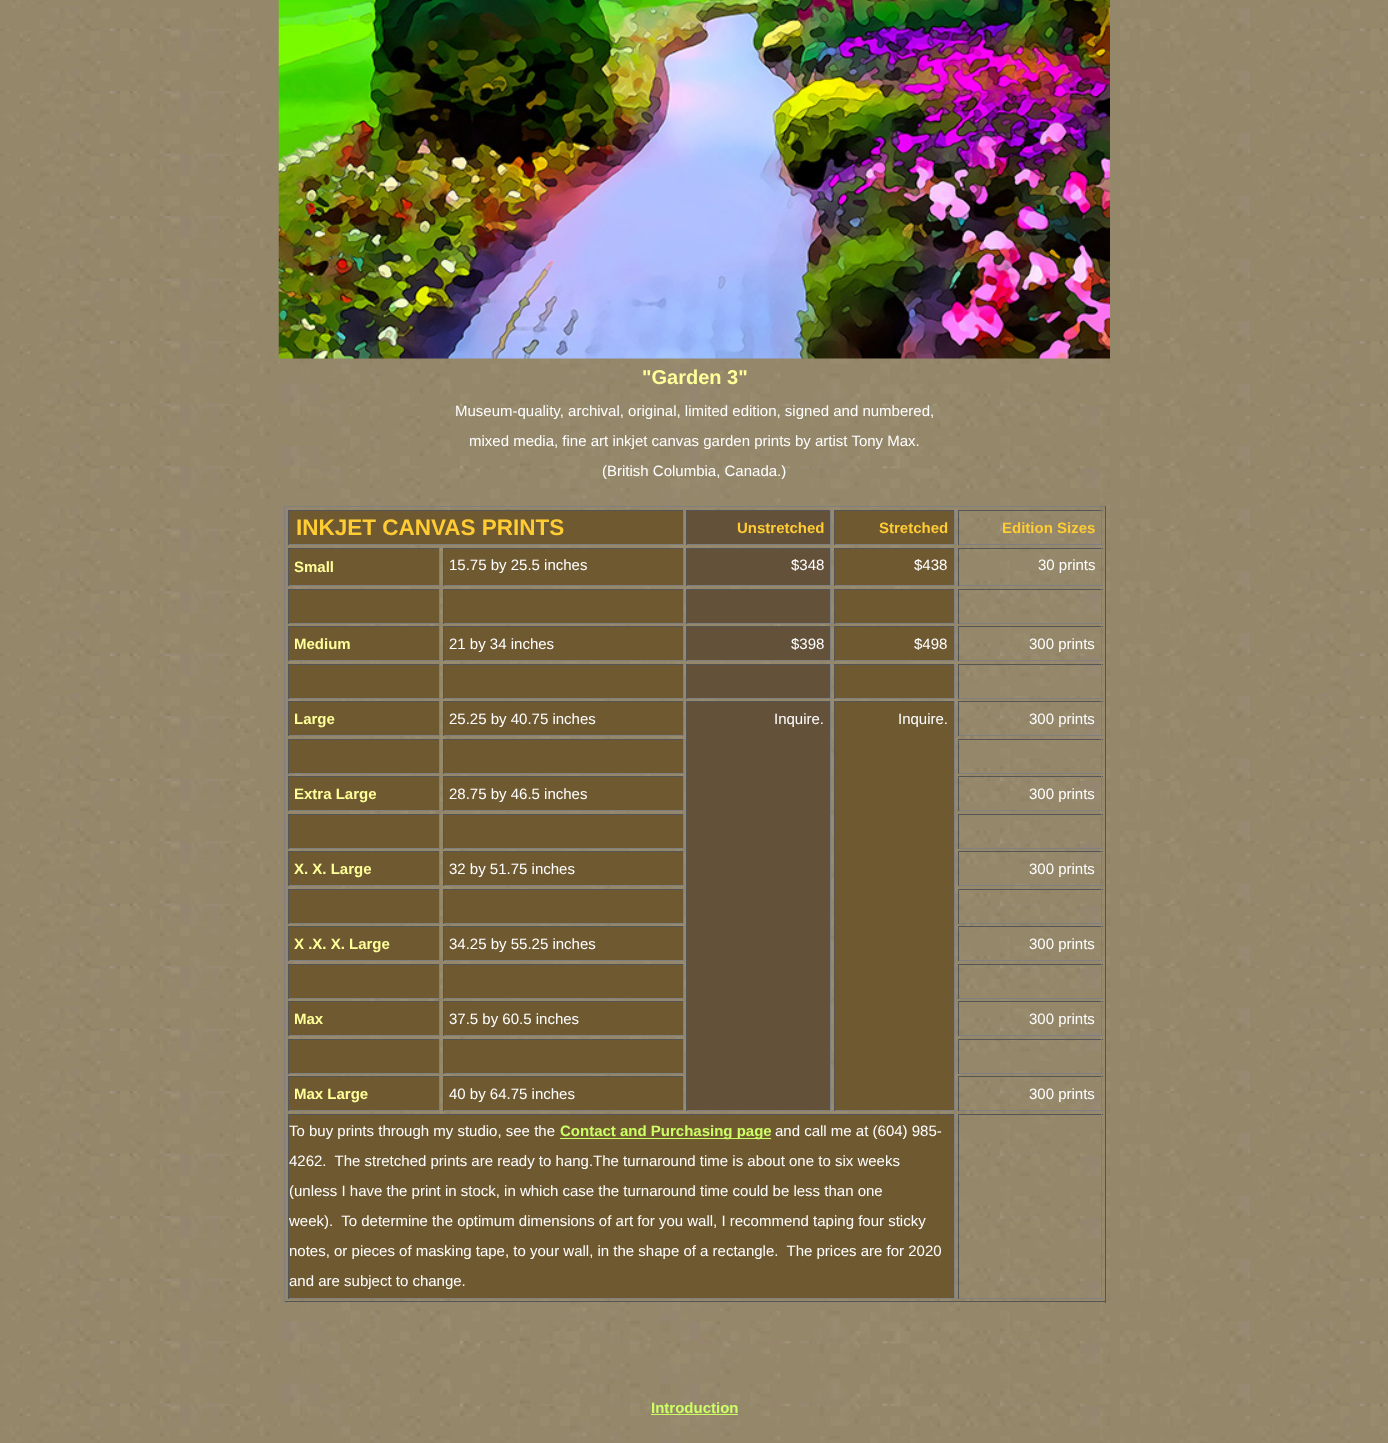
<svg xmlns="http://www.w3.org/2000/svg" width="1388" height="1443">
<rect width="100%" height="100%" fill="#fff"/>
<image x="0" y="0" width="1388" height="1443" href="media/1.png"/>
<image x="278" y="0" width="832" height="359" href="media/2.png"/>
<text x="642" y="384" style="font-family:Liberation Sans;font-size:20px;font-weight:bold;fill:#ff9">"Garden 3"</text>
<text x="455" y="416" style="font-family:Liberation Sans;font-size:15px;fill:#fff">Museum-quality, archival, original, limited edition, signed and numbered,</text>
<text x="469" y="446" style="font-family:Liberation Sans;font-size:15px;fill:#fff">mixed media, fine art inkjet canvas garden prints by artist Tony Max.</text>
<text x="602" y="476" style="font-family:Liberation Sans;font-size:15px;fill:#fff">(British Columbia, Canada.)</text>
<rect x="284" y="506" width="822" height="1" fill="#808080"/>
<rect x="1105" y="506" width="1" height="797" fill="#555"/>
<rect x="284" y="1301" width="822" height="1" fill="#555"/>
<rect x="284" y="506" width="1" height="797" fill="#808080"/>
<rect x="289" y="511" width="394" height="33" fill="#6f5931"/>
<rect x="288" y="510" width="396" height="1" fill="#555"/>
<rect x="683" y="510" width="1" height="35" fill="#808080"/>
<rect x="288" y="544" width="396" height="1" fill="#808080"/>
<rect x="288" y="510" width="1" height="35" fill="#555"/>
<text x="296" y="535" style="font-family:Liberation Sans;font-size:22.5px;font-weight:bold;fill:#fc3">INKJET CANVAS PRINTS</text>
<rect x="687" y="511" width="143" height="33" fill="#64513a"/>
<rect x="686" y="510" width="145" height="1" fill="#555"/>
<rect x="830" y="510" width="1" height="35" fill="#808080"/>
<rect x="686" y="544" width="145" height="1" fill="#808080"/>
<rect x="686" y="510" width="1" height="35" fill="#555"/>
<text x="737" y="533" style="font-family:Liberation Sans;font-size:15px;font-weight:bold;fill:#fc3">Unstretched</text>
<rect x="835" y="511" width="119" height="33" fill="#6f5931"/>
<rect x="834" y="510" width="121" height="1" fill="#555"/>
<rect x="954" y="510" width="1" height="35" fill="#808080"/>
<rect x="834" y="544" width="121" height="1" fill="#808080"/>
<rect x="834" y="510" width="1" height="35" fill="#555"/>
<text x="879" y="533" style="font-family:Liberation Sans;font-size:15px;font-weight:bold;fill:#fc3">Stretched</text>
<rect x="958" y="510" width="145" height="1" fill="#555"/>
<rect x="1101" y="510" width="1" height="35" fill="#808080"/>
<rect x="958" y="544" width="145" height="1" fill="#808080"/>
<rect x="958" y="510" width="1" height="35" fill="#555"/>
<text x="1002" y="533" style="font-family:Liberation Sans;font-size:15px;font-weight:bold;fill:#fc3">Edition Sizes</text>
<rect x="289" y="549" width="150" height="36" fill="#6f5931"/>
<rect x="288" y="548" width="152" height="1" fill="#555"/>
<rect x="439" y="548" width="1" height="38" fill="#808080"/>
<rect x="288" y="585" width="152" height="1" fill="#808080"/>
<rect x="288" y="548" width="1" height="38" fill="#555"/>
<text x="294" y="572" style="font-family:Liberation Sans;font-size:15px;font-weight:bold;fill:#ff9">Small</text>
<rect x="444" y="549" width="239" height="36" fill="#6f5931"/>
<rect x="443" y="548" width="241" height="1" fill="#555"/>
<rect x="683" y="548" width="1" height="38" fill="#808080"/>
<rect x="443" y="585" width="241" height="1" fill="#808080"/>
<rect x="443" y="548" width="1" height="38" fill="#555"/>
<text x="449" y="570" style="font-family:Liberation Sans;font-size:15px;fill:#fff">15.75 by 25.5 inches</text>
<rect x="687" y="549" width="143" height="36" fill="#64513a"/>
<rect x="686" y="548" width="145" height="1" fill="#555"/>
<rect x="830" y="548" width="1" height="38" fill="#808080"/>
<rect x="686" y="585" width="145" height="1" fill="#808080"/>
<rect x="686" y="548" width="1" height="38" fill="#555"/>
<text x="791" y="570" style="font-family:Liberation Sans;font-size:15px;fill:#fff">$348</text>
<rect x="835" y="549" width="119" height="36" fill="#6f5931"/>
<rect x="834" y="548" width="121" height="1" fill="#555"/>
<rect x="954" y="548" width="1" height="38" fill="#808080"/>
<rect x="834" y="585" width="121" height="1" fill="#808080"/>
<rect x="834" y="548" width="1" height="38" fill="#555"/>
<text x="914" y="570" style="font-family:Liberation Sans;font-size:15px;fill:#fff">$438</text>
<rect x="958" y="548" width="145" height="1" fill="#555"/>
<rect x="1101" y="548" width="1" height="38" fill="#808080"/>
<rect x="958" y="585" width="145" height="1" fill="#808080"/>
<rect x="958" y="548" width="1" height="38" fill="#555"/>
<text x="1038" y="570" style="font-family:Liberation Sans;font-size:15px;fill:#fff">30 prints</text>
<rect x="289" y="590" width="150" height="33" fill="#6f5931"/>
<rect x="288" y="589" width="152" height="1" fill="#555"/>
<rect x="439" y="589" width="1" height="35" fill="#808080"/>
<rect x="288" y="623" width="152" height="1" fill="#808080"/>
<rect x="288" y="589" width="1" height="35" fill="#555"/>
<rect x="444" y="590" width="239" height="33" fill="#6f5931"/>
<rect x="443" y="589" width="241" height="1" fill="#555"/>
<rect x="683" y="589" width="1" height="35" fill="#808080"/>
<rect x="443" y="623" width="241" height="1" fill="#808080"/>
<rect x="443" y="589" width="1" height="35" fill="#555"/>
<rect x="687" y="590" width="143" height="33" fill="#64513a"/>
<rect x="686" y="589" width="145" height="1" fill="#555"/>
<rect x="830" y="589" width="1" height="35" fill="#808080"/>
<rect x="686" y="623" width="145" height="1" fill="#808080"/>
<rect x="686" y="589" width="1" height="35" fill="#555"/>
<rect x="835" y="590" width="119" height="33" fill="#6f5931"/>
<rect x="834" y="589" width="121" height="1" fill="#555"/>
<rect x="954" y="589" width="1" height="35" fill="#808080"/>
<rect x="834" y="623" width="121" height="1" fill="#808080"/>
<rect x="834" y="589" width="1" height="35" fill="#555"/>
<rect x="958" y="589" width="145" height="1" fill="#555"/>
<rect x="1101" y="589" width="1" height="35" fill="#808080"/>
<rect x="958" y="623" width="145" height="1" fill="#808080"/>
<rect x="958" y="589" width="1" height="35" fill="#555"/>
<rect x="289" y="627" width="150" height="33" fill="#6f5931"/>
<rect x="288" y="626" width="152" height="1" fill="#555"/>
<rect x="439" y="626" width="1" height="35" fill="#808080"/>
<rect x="288" y="660" width="152" height="1" fill="#808080"/>
<rect x="288" y="626" width="1" height="35" fill="#555"/>
<text x="294" y="649" style="font-family:Liberation Sans;font-size:15px;font-weight:bold;fill:#ff9">Medium</text>
<rect x="444" y="627" width="239" height="33" fill="#6f5931"/>
<rect x="443" y="626" width="241" height="1" fill="#555"/>
<rect x="683" y="626" width="1" height="35" fill="#808080"/>
<rect x="443" y="660" width="241" height="1" fill="#808080"/>
<rect x="443" y="626" width="1" height="35" fill="#555"/>
<text x="449" y="649" style="font-family:Liberation Sans;font-size:15px;fill:#fff">21 by 34 inches</text>
<rect x="687" y="627" width="143" height="33" fill="#64513a"/>
<rect x="686" y="626" width="145" height="1" fill="#555"/>
<rect x="830" y="626" width="1" height="35" fill="#808080"/>
<rect x="686" y="660" width="145" height="1" fill="#808080"/>
<rect x="686" y="626" width="1" height="35" fill="#555"/>
<text x="791" y="649" style="font-family:Liberation Sans;font-size:15px;fill:#fff">$398</text>
<rect x="835" y="627" width="119" height="33" fill="#6f5931"/>
<rect x="834" y="626" width="121" height="1" fill="#555"/>
<rect x="954" y="626" width="1" height="35" fill="#808080"/>
<rect x="834" y="660" width="121" height="1" fill="#808080"/>
<rect x="834" y="626" width="1" height="35" fill="#555"/>
<text x="914" y="649" style="font-family:Liberation Sans;font-size:15px;fill:#fff">$498</text>
<rect x="958" y="626" width="145" height="1" fill="#555"/>
<rect x="1101" y="626" width="1" height="35" fill="#808080"/>
<rect x="958" y="660" width="145" height="1" fill="#808080"/>
<rect x="958" y="626" width="1" height="35" fill="#555"/>
<text x="1029" y="649" style="font-family:Liberation Sans;font-size:15px;fill:#fff">300 prints</text>
<rect x="289" y="665" width="150" height="33" fill="#6f5931"/>
<rect x="288" y="664" width="152" height="1" fill="#555"/>
<rect x="439" y="664" width="1" height="35" fill="#808080"/>
<rect x="288" y="698" width="152" height="1" fill="#808080"/>
<rect x="288" y="664" width="1" height="35" fill="#555"/>
<rect x="444" y="665" width="239" height="33" fill="#6f5931"/>
<rect x="443" y="664" width="241" height="1" fill="#555"/>
<rect x="683" y="664" width="1" height="35" fill="#808080"/>
<rect x="443" y="698" width="241" height="1" fill="#808080"/>
<rect x="443" y="664" width="1" height="35" fill="#555"/>
<rect x="687" y="665" width="143" height="33" fill="#64513a"/>
<rect x="686" y="664" width="145" height="1" fill="#555"/>
<rect x="830" y="664" width="1" height="35" fill="#808080"/>
<rect x="686" y="698" width="145" height="1" fill="#808080"/>
<rect x="686" y="664" width="1" height="35" fill="#555"/>
<rect x="835" y="665" width="119" height="33" fill="#6f5931"/>
<rect x="834" y="664" width="121" height="1" fill="#555"/>
<rect x="954" y="664" width="1" height="35" fill="#808080"/>
<rect x="834" y="698" width="121" height="1" fill="#808080"/>
<rect x="834" y="664" width="1" height="35" fill="#555"/>
<rect x="958" y="664" width="145" height="1" fill="#555"/>
<rect x="1101" y="664" width="1" height="35" fill="#808080"/>
<rect x="958" y="698" width="145" height="1" fill="#808080"/>
<rect x="958" y="664" width="1" height="35" fill="#555"/>
<rect x="289" y="702" width="150" height="33" fill="#6f5931"/>
<rect x="288" y="701" width="152" height="1" fill="#555"/>
<rect x="439" y="701" width="1" height="35" fill="#808080"/>
<rect x="288" y="735" width="152" height="1" fill="#808080"/>
<rect x="288" y="701" width="1" height="35" fill="#555"/>
<text x="294" y="724" style="font-family:Liberation Sans;font-size:15px;font-weight:bold;fill:#ff9">Large</text>
<rect x="444" y="702" width="239" height="33" fill="#6f5931"/>
<rect x="443" y="701" width="241" height="1" fill="#555"/>
<rect x="683" y="701" width="1" height="35" fill="#808080"/>
<rect x="443" y="735" width="241" height="1" fill="#808080"/>
<rect x="443" y="701" width="1" height="35" fill="#555"/>
<text x="449" y="724" style="font-family:Liberation Sans;font-size:15px;fill:#fff">25.25 by 40.75 inches</text>
<rect x="687" y="702" width="143" height="408" fill="#64513a"/>
<rect x="686" y="701" width="145" height="1" fill="#555"/>
<rect x="830" y="701" width="1" height="410" fill="#808080"/>
<rect x="686" y="1110" width="145" height="1" fill="#808080"/>
<rect x="686" y="701" width="1" height="410" fill="#555"/>
<text x="774" y="724" style="font-family:Liberation Sans;font-size:15px;fill:#fff">Inquire.</text>
<rect x="835" y="702" width="119" height="408" fill="#6f5931"/>
<rect x="834" y="701" width="121" height="1" fill="#555"/>
<rect x="954" y="701" width="1" height="410" fill="#808080"/>
<rect x="834" y="1110" width="121" height="1" fill="#808080"/>
<rect x="834" y="701" width="1" height="410" fill="#555"/>
<text x="898" y="724" style="font-family:Liberation Sans;font-size:15px;fill:#fff">Inquire.</text>
<rect x="958" y="701" width="145" height="1" fill="#555"/>
<rect x="1101" y="701" width="1" height="35" fill="#808080"/>
<rect x="958" y="735" width="145" height="1" fill="#808080"/>
<rect x="958" y="701" width="1" height="35" fill="#555"/>
<text x="1029" y="724" style="font-family:Liberation Sans;font-size:15px;fill:#fff">300 prints</text>
<rect x="289" y="740" width="150" height="33" fill="#6f5931"/>
<rect x="288" y="739" width="152" height="1" fill="#555"/>
<rect x="439" y="739" width="1" height="35" fill="#808080"/>
<rect x="288" y="773" width="152" height="1" fill="#808080"/>
<rect x="288" y="739" width="1" height="35" fill="#555"/>
<rect x="444" y="740" width="239" height="33" fill="#6f5931"/>
<rect x="443" y="739" width="241" height="1" fill="#555"/>
<rect x="683" y="739" width="1" height="35" fill="#808080"/>
<rect x="443" y="773" width="241" height="1" fill="#808080"/>
<rect x="443" y="739" width="1" height="35" fill="#555"/>
<rect x="958" y="739" width="145" height="1" fill="#555"/>
<rect x="1101" y="739" width="1" height="35" fill="#808080"/>
<rect x="958" y="773" width="145" height="1" fill="#808080"/>
<rect x="958" y="739" width="1" height="35" fill="#555"/>
<rect x="289" y="777" width="150" height="33" fill="#6f5931"/>
<rect x="288" y="776" width="152" height="1" fill="#555"/>
<rect x="439" y="776" width="1" height="35" fill="#808080"/>
<rect x="288" y="810" width="152" height="1" fill="#808080"/>
<rect x="288" y="776" width="1" height="35" fill="#555"/>
<text x="294" y="799" style="font-family:Liberation Sans;font-size:15px;font-weight:bold;fill:#ff9">Extra Large</text>
<rect x="444" y="777" width="239" height="33" fill="#6f5931"/>
<rect x="443" y="776" width="241" height="1" fill="#555"/>
<rect x="683" y="776" width="1" height="35" fill="#808080"/>
<rect x="443" y="810" width="241" height="1" fill="#808080"/>
<rect x="443" y="776" width="1" height="35" fill="#555"/>
<text x="449" y="799" style="font-family:Liberation Sans;font-size:15px;fill:#fff">28.75 by 46.5 inches</text>
<rect x="958" y="776" width="145" height="1" fill="#555"/>
<rect x="1101" y="776" width="1" height="35" fill="#808080"/>
<rect x="958" y="810" width="145" height="1" fill="#808080"/>
<rect x="958" y="776" width="1" height="35" fill="#555"/>
<text x="1029" y="799" style="font-family:Liberation Sans;font-size:15px;fill:#fff">300 prints</text>
<rect x="289" y="815" width="150" height="33" fill="#6f5931"/>
<rect x="288" y="814" width="152" height="1" fill="#555"/>
<rect x="439" y="814" width="1" height="35" fill="#808080"/>
<rect x="288" y="848" width="152" height="1" fill="#808080"/>
<rect x="288" y="814" width="1" height="35" fill="#555"/>
<rect x="444" y="815" width="239" height="33" fill="#6f5931"/>
<rect x="443" y="814" width="241" height="1" fill="#555"/>
<rect x="683" y="814" width="1" height="35" fill="#808080"/>
<rect x="443" y="848" width="241" height="1" fill="#808080"/>
<rect x="443" y="814" width="1" height="35" fill="#555"/>
<rect x="958" y="814" width="145" height="1" fill="#555"/>
<rect x="1101" y="814" width="1" height="35" fill="#808080"/>
<rect x="958" y="848" width="145" height="1" fill="#808080"/>
<rect x="958" y="814" width="1" height="35" fill="#555"/>
<rect x="289" y="852" width="150" height="33" fill="#6f5931"/>
<rect x="288" y="851" width="152" height="1" fill="#555"/>
<rect x="439" y="851" width="1" height="35" fill="#808080"/>
<rect x="288" y="885" width="152" height="1" fill="#808080"/>
<rect x="288" y="851" width="1" height="35" fill="#555"/>
<text x="294" y="874" style="font-family:Liberation Sans;font-size:15px;font-weight:bold;fill:#ff9">X. X. Large</text>
<rect x="444" y="852" width="239" height="33" fill="#6f5931"/>
<rect x="443" y="851" width="241" height="1" fill="#555"/>
<rect x="683" y="851" width="1" height="35" fill="#808080"/>
<rect x="443" y="885" width="241" height="1" fill="#808080"/>
<rect x="443" y="851" width="1" height="35" fill="#555"/>
<text x="449" y="874" style="font-family:Liberation Sans;font-size:15px;fill:#fff">32 by 51.75 inches</text>
<rect x="958" y="851" width="145" height="1" fill="#555"/>
<rect x="1101" y="851" width="1" height="35" fill="#808080"/>
<rect x="958" y="885" width="145" height="1" fill="#808080"/>
<rect x="958" y="851" width="1" height="35" fill="#555"/>
<text x="1029" y="874" style="font-family:Liberation Sans;font-size:15px;fill:#fff">300 prints</text>
<rect x="289" y="890" width="150" height="33" fill="#6f5931"/>
<rect x="288" y="889" width="152" height="1" fill="#555"/>
<rect x="439" y="889" width="1" height="35" fill="#808080"/>
<rect x="288" y="923" width="152" height="1" fill="#808080"/>
<rect x="288" y="889" width="1" height="35" fill="#555"/>
<rect x="444" y="890" width="239" height="33" fill="#6f5931"/>
<rect x="443" y="889" width="241" height="1" fill="#555"/>
<rect x="683" y="889" width="1" height="35" fill="#808080"/>
<rect x="443" y="923" width="241" height="1" fill="#808080"/>
<rect x="443" y="889" width="1" height="35" fill="#555"/>
<rect x="958" y="889" width="145" height="1" fill="#555"/>
<rect x="1101" y="889" width="1" height="35" fill="#808080"/>
<rect x="958" y="923" width="145" height="1" fill="#808080"/>
<rect x="958" y="889" width="1" height="35" fill="#555"/>
<rect x="289" y="927" width="150" height="33" fill="#6f5931"/>
<rect x="288" y="926" width="152" height="1" fill="#555"/>
<rect x="439" y="926" width="1" height="35" fill="#808080"/>
<rect x="288" y="960" width="152" height="1" fill="#808080"/>
<rect x="288" y="926" width="1" height="35" fill="#555"/>
<text x="294" y="949" style="font-family:Liberation Sans;font-size:15px;font-weight:bold;fill:#ff9">X .X. X. Large</text>
<rect x="444" y="927" width="239" height="33" fill="#6f5931"/>
<rect x="443" y="926" width="241" height="1" fill="#555"/>
<rect x="683" y="926" width="1" height="35" fill="#808080"/>
<rect x="443" y="960" width="241" height="1" fill="#808080"/>
<rect x="443" y="926" width="1" height="35" fill="#555"/>
<text x="449" y="949" style="font-family:Liberation Sans;font-size:15px;fill:#fff">34.25 by 55.25 inches</text>
<rect x="958" y="926" width="145" height="1" fill="#555"/>
<rect x="1101" y="926" width="1" height="35" fill="#808080"/>
<rect x="958" y="960" width="145" height="1" fill="#808080"/>
<rect x="958" y="926" width="1" height="35" fill="#555"/>
<text x="1029" y="949" style="font-family:Liberation Sans;font-size:15px;fill:#fff">300 prints</text>
<rect x="289" y="965" width="150" height="33" fill="#6f5931"/>
<rect x="288" y="964" width="152" height="1" fill="#555"/>
<rect x="439" y="964" width="1" height="35" fill="#808080"/>
<rect x="288" y="998" width="152" height="1" fill="#808080"/>
<rect x="288" y="964" width="1" height="35" fill="#555"/>
<rect x="444" y="965" width="239" height="33" fill="#6f5931"/>
<rect x="443" y="964" width="241" height="1" fill="#555"/>
<rect x="683" y="964" width="1" height="35" fill="#808080"/>
<rect x="443" y="998" width="241" height="1" fill="#808080"/>
<rect x="443" y="964" width="1" height="35" fill="#555"/>
<rect x="958" y="964" width="145" height="1" fill="#555"/>
<rect x="1101" y="964" width="1" height="35" fill="#808080"/>
<rect x="958" y="998" width="145" height="1" fill="#808080"/>
<rect x="958" y="964" width="1" height="35" fill="#555"/>
<rect x="289" y="1002" width="150" height="33" fill="#6f5931"/>
<rect x="288" y="1001" width="152" height="1" fill="#555"/>
<rect x="439" y="1001" width="1" height="35" fill="#808080"/>
<rect x="288" y="1035" width="152" height="1" fill="#808080"/>
<rect x="288" y="1001" width="1" height="35" fill="#555"/>
<text x="294" y="1024" style="font-family:Liberation Sans;font-size:15px;font-weight:bold;fill:#ff9">Max</text>
<rect x="444" y="1002" width="239" height="33" fill="#6f5931"/>
<rect x="443" y="1001" width="241" height="1" fill="#555"/>
<rect x="683" y="1001" width="1" height="35" fill="#808080"/>
<rect x="443" y="1035" width="241" height="1" fill="#808080"/>
<rect x="443" y="1001" width="1" height="35" fill="#555"/>
<text x="449" y="1024" style="font-family:Liberation Sans;font-size:15px;fill:#fff">37.5 by 60.5 inches</text>
<rect x="958" y="1001" width="145" height="1" fill="#555"/>
<rect x="1101" y="1001" width="1" height="35" fill="#808080"/>
<rect x="958" y="1035" width="145" height="1" fill="#808080"/>
<rect x="958" y="1001" width="1" height="35" fill="#555"/>
<text x="1029" y="1024" style="font-family:Liberation Sans;font-size:15px;fill:#fff">300 prints</text>
<rect x="289" y="1040" width="150" height="33" fill="#6f5931"/>
<rect x="288" y="1039" width="152" height="1" fill="#555"/>
<rect x="439" y="1039" width="1" height="35" fill="#808080"/>
<rect x="288" y="1073" width="152" height="1" fill="#808080"/>
<rect x="288" y="1039" width="1" height="35" fill="#555"/>
<rect x="444" y="1040" width="239" height="33" fill="#6f5931"/>
<rect x="443" y="1039" width="241" height="1" fill="#555"/>
<rect x="683" y="1039" width="1" height="35" fill="#808080"/>
<rect x="443" y="1073" width="241" height="1" fill="#808080"/>
<rect x="443" y="1039" width="1" height="35" fill="#555"/>
<rect x="958" y="1039" width="145" height="1" fill="#555"/>
<rect x="1101" y="1039" width="1" height="35" fill="#808080"/>
<rect x="958" y="1073" width="145" height="1" fill="#808080"/>
<rect x="958" y="1039" width="1" height="35" fill="#555"/>
<rect x="289" y="1077" width="150" height="33" fill="#6f5931"/>
<rect x="288" y="1076" width="152" height="1" fill="#555"/>
<rect x="439" y="1076" width="1" height="35" fill="#808080"/>
<rect x="288" y="1110" width="152" height="1" fill="#808080"/>
<rect x="288" y="1076" width="1" height="35" fill="#555"/>
<text x="294" y="1099" style="font-family:Liberation Sans;font-size:15px;font-weight:bold;fill:#ff9">Max Large</text>
<rect x="444" y="1077" width="239" height="33" fill="#6f5931"/>
<rect x="443" y="1076" width="241" height="1" fill="#555"/>
<rect x="683" y="1076" width="1" height="35" fill="#808080"/>
<rect x="443" y="1110" width="241" height="1" fill="#808080"/>
<rect x="443" y="1076" width="1" height="35" fill="#555"/>
<text x="449" y="1099" style="font-family:Liberation Sans;font-size:15px;fill:#fff">40 by 64.75 inches</text>
<rect x="958" y="1076" width="145" height="1" fill="#555"/>
<rect x="1101" y="1076" width="1" height="35" fill="#808080"/>
<rect x="958" y="1110" width="145" height="1" fill="#808080"/>
<rect x="958" y="1076" width="1" height="35" fill="#555"/>
<text x="1029" y="1099" style="font-family:Liberation Sans;font-size:15px;fill:#fff">300 prints</text>
<rect x="289" y="1115" width="665" height="183" fill="#6f5931"/>
<rect x="288" y="1114" width="667" height="1" fill="#555"/>
<rect x="954" y="1114" width="1" height="185" fill="#808080"/>
<rect x="288" y="1298" width="667" height="1" fill="#808080"/>
<rect x="288" y="1114" width="1" height="185" fill="#555"/>
<text x="289" y="1136" style="font-family:Liberation Sans;font-size:15px;fill:#fff">To buy prints through my studio, see the</text>
<rect x="560" y="1138" width="211" height="1" fill="#cf6"/>
<text x="560" y="1136" style="font-family:Liberation Sans;font-size:15px;font-weight:bold;fill:#cf6">Contact and Purchasing page</text>
<text x="775" y="1136" style="font-family:Liberation Sans;font-size:15px;fill:#fff">and call me at (604) 985-</text>
<text x="289" y="1166" style="font-family:Liberation Sans;font-size:15px;fill:#fff" xml:space="preserve">4262.  The stretched prints are ready to hang.The turnaround time is about one to six weeks</text>
<text x="289" y="1196" style="font-family:Liberation Sans;font-size:15px;fill:#fff">(unless I have the print in stock, in which case the turnaround time could be less than one</text>
<text x="289" y="1226" style="font-family:Liberation Sans;font-size:15px;fill:#fff" xml:space="preserve">week).  To determine the optimum dimensions of art for you wall, I recommend taping four sticky</text>
<text x="289" y="1256" style="font-family:Liberation Sans;font-size:15px;fill:#fff" xml:space="preserve">notes, or pieces of masking tape, to your wall, in the shape of a rectangle.  The prices are for 2020</text>
<text x="289" y="1286" style="font-family:Liberation Sans;font-size:15px;fill:#fff">and are subject to change.</text>
<rect x="958" y="1114" width="145" height="1" fill="#555"/>
<rect x="1101" y="1114" width="1" height="185" fill="#808080"/>
<rect x="958" y="1298" width="145" height="1" fill="#808080"/>
<rect x="958" y="1114" width="1" height="185" fill="#555"/>
<text x="651" y="1413" style="font-family:Liberation Sans;font-size:15px;font-weight:bold;fill:#cf6">Introduction</text>
<rect x="651" y="1414" width="87" height="1" fill="#cf6"/>
</svg>
